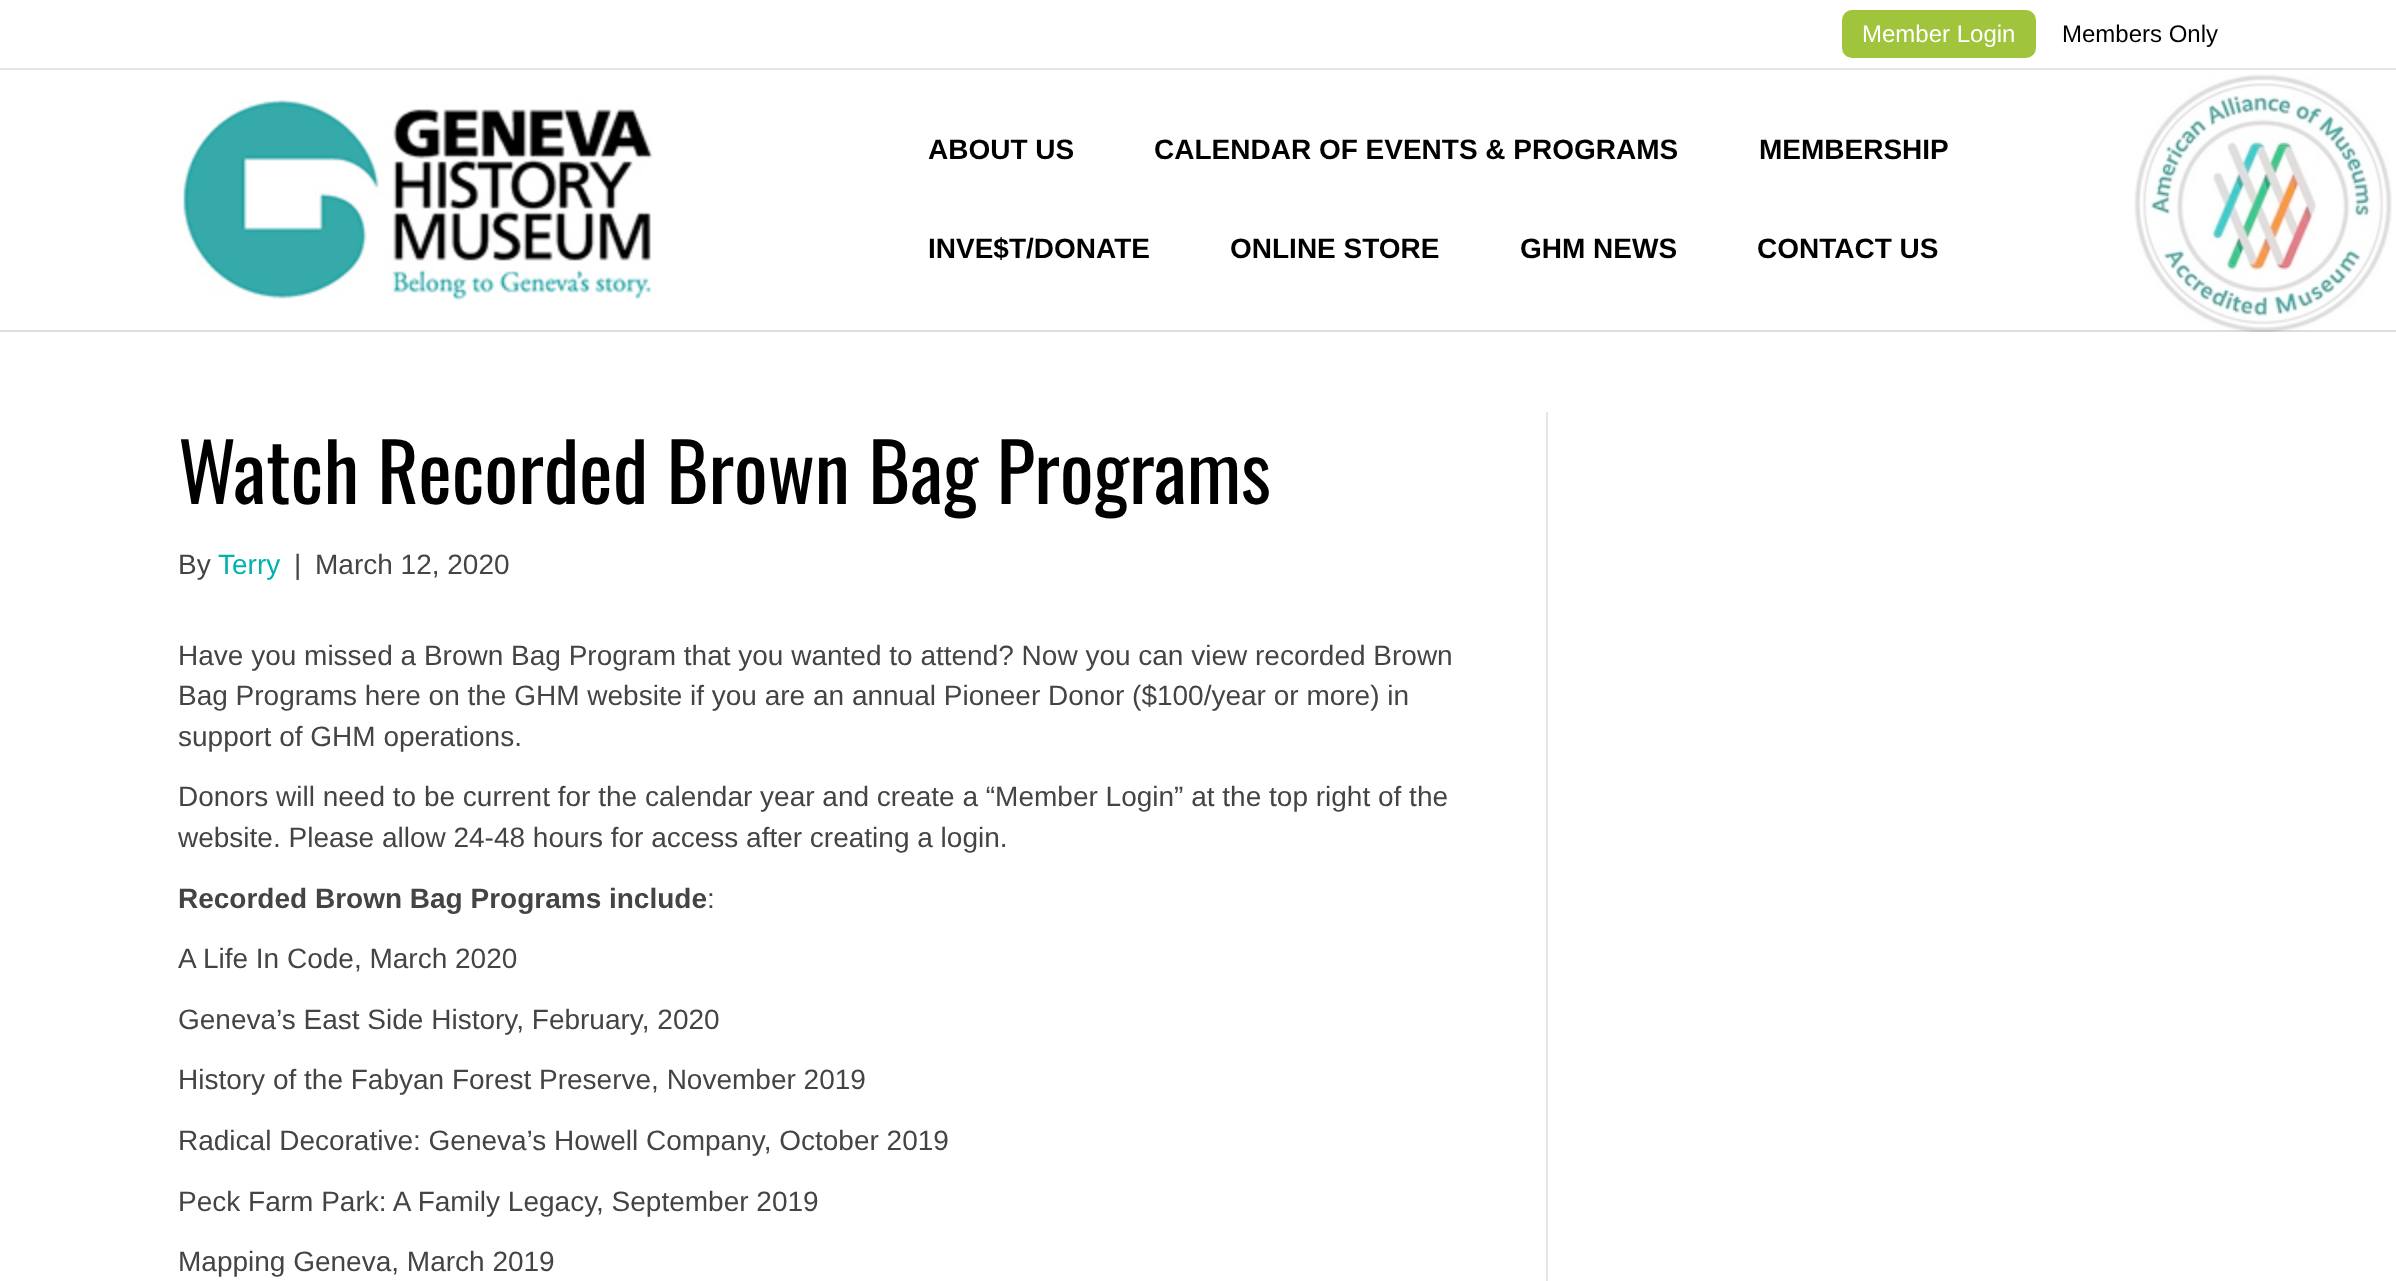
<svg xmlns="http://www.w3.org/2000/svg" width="2396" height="1281">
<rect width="100%" height="100%" fill="#fff"/>
<rect y="68" width="2396" height="2" fill="#e6e6e6"/>
<rect x="1842" y="10" width="194" height="48" rx="10" fill="#a0c43c"/>
<text x="1862" y="42" style="font-family:Liberation Sans;font-size:24px;fill:#fff">Member Login</text>
<text x="2062" y="42" style="font-family:Liberation Sans;font-size:24px;fill:#000">Members Only</text>
<image x="2134" y="74" width="258" height="258" href="media/1.png"/>
<rect y="330" width="2396" height="2" fill="#00000021"/>
<image x="183" y="100" width="470" height="200" href="media/2.png"/>
<text x="928" y="159" style="font-family:Liberation Sans;font-size:28px;font-weight:bold;fill:#000">ABOUT US</text>
<text x="1154" y="159" style="font-family:Liberation Sans;font-size:28px;font-weight:bold;fill:#000">CALENDAR OF EVENTS &amp; PROGRAMS</text>
<text x="1759" y="159" style="font-family:Liberation Sans;font-size:28px;font-weight:bold;fill:#000">MEMBERSHIP</text>
<text x="928" y="258" style="font-family:Liberation Sans;font-size:28px;font-weight:bold;fill:#000">INVE$T/DONATE</text>
<text x="1230" y="258" style="font-family:Liberation Sans;font-size:28px;font-weight:bold;fill:#000">ONLINE STORE</text>
<text x="1520" y="258" style="font-family:Liberation Sans;font-size:28px;font-weight:bold;fill:#000">GHM NEWS</text>
<text x="1757" y="258" style="font-family:Liberation Sans;font-size:28px;font-weight:bold;fill:#000">CONTACT US</text>
<rect x="1546" y="412" width="2" height="869" fill="#e6e6e6"/>
<text x="178" y="504" style="font-family:Oswald;font-size:80px;fill:#000">Watch Recorded Brown Bag Programs</text>
<text x="178" y="574" style="font-family:Liberation Sans;font-size:28px;fill:#444">By</text>
<text x="218" y="574" style="font-family:Liberation Sans;font-size:28px;fill:#01b1af">Terry</text>
<text x="294" y="574" style="font-family:Liberation Sans;font-size:28px;fill:#444">|</text>
<text x="315" y="574" style="font-family:Liberation Sans;font-size:28px;fill:#444">March 12, 2020</text>
<text x="178" y="665" style="font-family:Liberation Sans;font-size:28px;fill:#444">Have you missed a Brown Bag Program that you wanted to attend? Now you can view recorded Brown</text>
<text x="178" y="705" style="font-family:Liberation Sans;font-size:28px;fill:#444">Bag Programs here on the GHM website if you are an annual Pioneer Donor ($100/year or more) in</text>
<text x="178" y="746" style="font-family:Liberation Sans;font-size:28px;fill:#444">support of GHM operations.</text>
<text x="178" y="806" style="font-family:Liberation Sans;font-size:28px;fill:#444">Donors will need to be current for the calendar year and create a “Member Login” at the top right of the</text>
<text x="178" y="847" style="font-family:Liberation Sans;font-size:28px;fill:#444">website. Please allow 24-48 hours for access after creating a login.</text>
<text x="178" y="908" style="font-family:Liberation Sans;font-size:28px;font-weight:bold;fill:#444">Recorded Brown Bag Programs include</text>
<text x="707" y="908" style="font-family:Liberation Sans;font-size:28px;fill:#444">:</text>
<text x="178" y="968" style="font-family:Liberation Sans;font-size:28px;fill:#444">A Life In Code, March 2020</text>
<text x="178" y="1029" style="font-family:Liberation Sans;font-size:28px;fill:#444">Geneva’s East Side History, February, 2020</text>
<text x="178" y="1089" style="font-family:Liberation Sans;font-size:28px;fill:#444">History of the Fabyan Forest Preserve, November 2019</text>
<text x="178" y="1150" style="font-family:Liberation Sans;font-size:28px;fill:#444">Radical Decorative: Geneva’s Howell Company, October 2019</text>
<text x="178" y="1211" style="font-family:Liberation Sans;font-size:28px;fill:#444">Peck Farm Park: A Family Legacy, September 2019</text>
<text x="178" y="1271" style="font-family:Liberation Sans;font-size:28px;fill:#444">Mapping Geneva, March 2019</text>
</svg>
